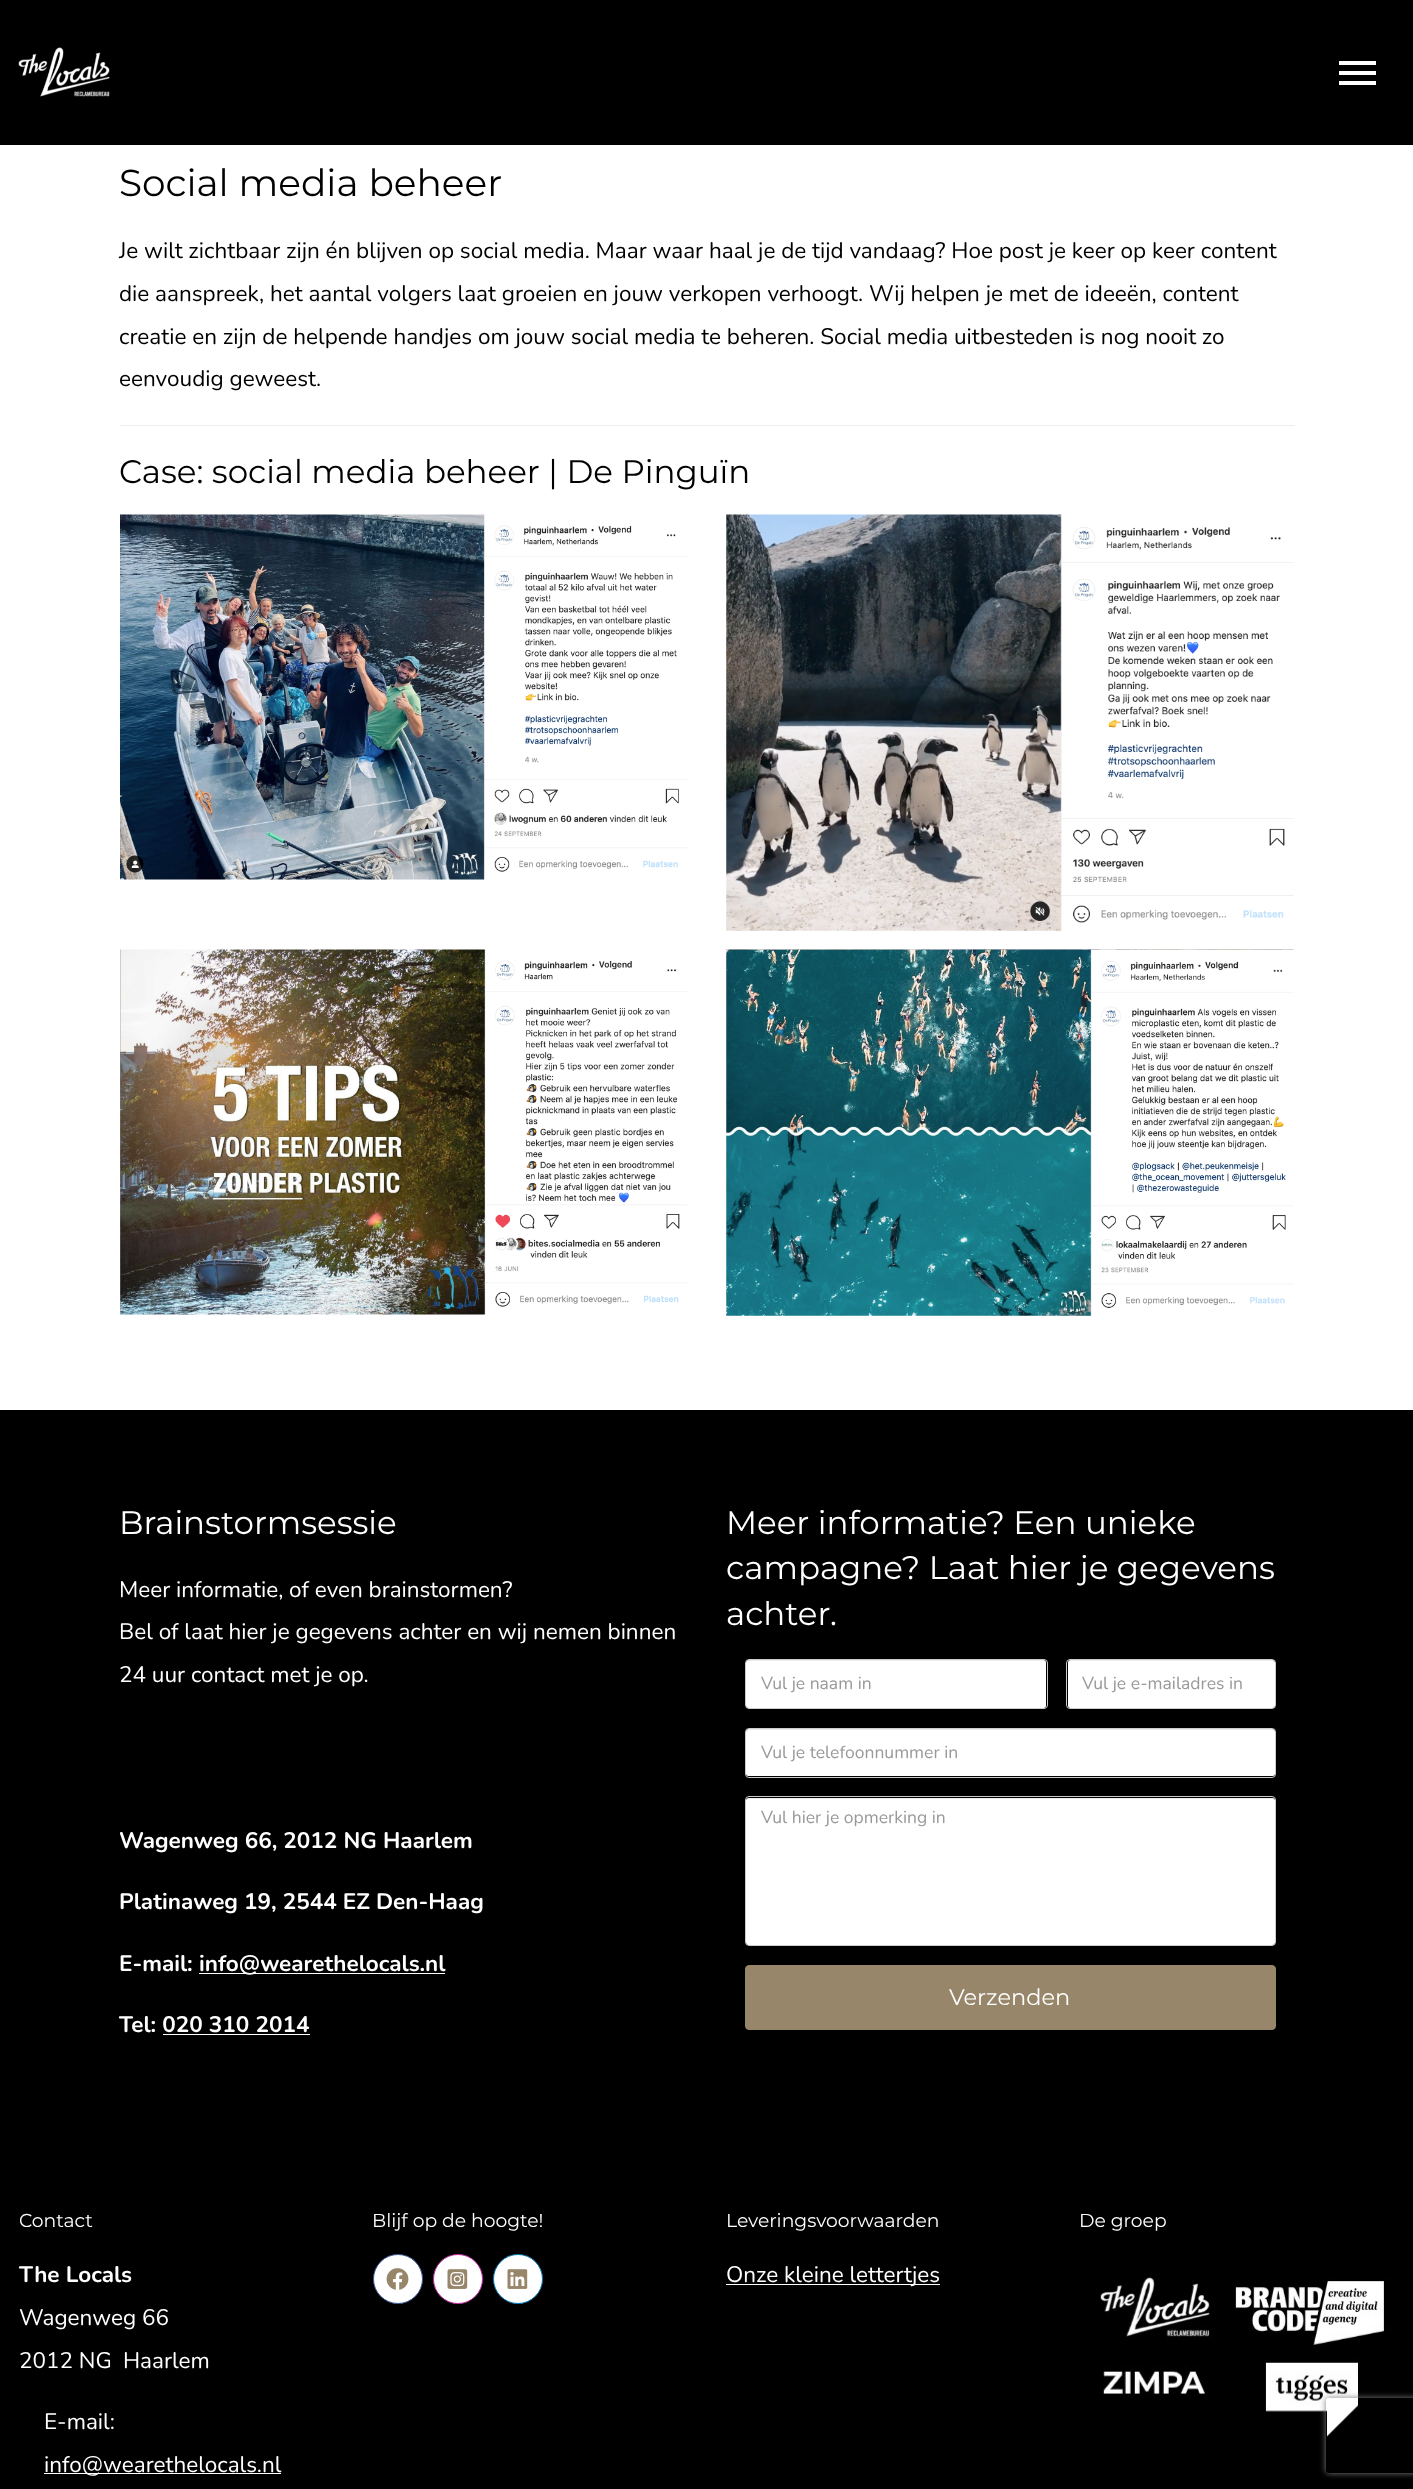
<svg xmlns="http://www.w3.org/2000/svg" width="1413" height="2489">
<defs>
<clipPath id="clip1"><path d="M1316 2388h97v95h-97zm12.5 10h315c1.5 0 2.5 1 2.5 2.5v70c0 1.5-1 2.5-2.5 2.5h-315c-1.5 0-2.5-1-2.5-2.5v-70c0-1.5 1-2.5 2.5-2.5z" clip-rule="evenodd"/></clipPath>
</defs>
<rect width="100%" height="100%" fill="#fff"/>
<rect width="1413" height="145" fill="#000"/>
<image x="18" y="47" width="92" height="50" href="media/1.png"/>
<rect x="1339" y="61" width="37" height="4" fill="#fff"/>
<rect x="1339" y="71" width="37" height="4" fill="#fff"/>
<rect x="1339" y="81" width="37" height="4" fill="#fff"/>
<text x="119" y="196" style="font-family:Montserrat;font-size:37.5px;fill:#000">Social media beheer</text>
<text x="119" y="258" style="font-family:Nunito;font-size:22.5px;fill:#000">Je wilt zichtbaar zijn én blijven op social media. Maar waar haal je de tijd vandaag? Hoe post je keer op keer content</text>
<text x="119" y="301" style="font-family:Nunito;font-size:22.5px;fill:#000">die aanspreek, het aantal volgers laat groeien en jouw verkopen verhoogt. Wij helpen je met de ideeën, content</text>
<text x="119" y="344" style="font-family:Nunito;font-size:22.5px;fill:#000">creatie en zijn de helpende handjes om jouw social media te beheren. Social media uitbesteden is nog nooit zo</text>
<text x="119" y="386" style="font-family:Nunito;font-size:22.5px;fill:#000">eenvoudig geweest.</text>
<rect x="120" y="425" width="1175" height="1" fill="#eee"/>
<text x="119" y="483" style="font-family:Montserrat;font-size:32.5px;fill:#000">Case: social media beheer | De Pinguïn</text>
<image x="120" y="514" width="568" height="366" href="media/2.png"/>
<image x="726" y="514" width="568" height="417" href="media/3.png"/>
<image x="120" y="949" width="568" height="366" href="media/4.png"/>
<image x="726" y="949" width="568" height="367" href="media/5.png"/>
<rect y="1410" width="1413" height="1079" fill="#000"/>
<text x="119" y="1534" style="font-family:Montserrat;font-size:32.5px;fill:#fff">Brainstormsessie</text>
<text x="119" y="1597" style="font-family:Nunito;font-size:22.5px;fill:#fff">Meer informatie, of even brainstormen?</text>
<text x="119" y="1639" style="font-family:Nunito;font-size:22.5px;fill:#fff">Bel of laat hier je gegevens achter en wij nemen binnen</text>
<text x="119" y="1682" style="font-family:Nunito;font-size:22.5px;fill:#fff">24 uur contact met je op.</text>
<text x="119" y="1848" style="font-family:Nunito;font-size:22.5px;font-weight:bold;fill:#fff">Wagenweg 66, 2012 NG Haarlem</text>
<text x="119" y="1909" style="font-family:Nunito;font-size:22.5px;font-weight:bold;fill:#fff">Platinaweg 19, 2544 EZ Den-Haag</text>
<text x="119" y="1971" style="font-family:Nunito;font-size:22.5px;font-weight:bold;fill:#fff">E-mail:</text>
<rect x="199" y="1973" width="246" height="1" fill="#fff"/>
<text x="199" y="1971" style="font-family:Nunito;font-size:22.5px;font-weight:bold;fill:#fff">info@wearethelocals.nl</text>
<text x="119" y="2032" style="font-family:Nunito;font-size:22.5px;font-weight:bold;fill:#fff">Tel: 020 310 2014</text>
<rect x="163" y="2034" width="147" height="1" fill="#fff"/>
<text x="726" y="1534" style="font-family:Montserrat;font-size:32.5px;fill:#fff">Meer informatie? Een unieke</text>
<text x="726" y="1579" style="font-family:Montserrat;font-size:32.5px;fill:#fff">campagne? Laat hier je gegevens</text>
<text x="726" y="1625" style="font-family:Montserrat;font-size:32.5px;fill:#fff">achter.</text>
<rect x="746" y="1660" width="300" height="48" rx="2.5" fill="#fff"/>
<path d="M749 1661h295c1 0 2 1 2 3v-2c0-1-1-2-2-2h-296c-1 0-2 1-2 2v2c0-2 1-3 3-3z" fill="#00000012"/>
<rect x="745.5" y="1659.5" width="302" height="49" rx="3.5" fill="none" stroke="#ccc"/>
<text x="761" y="1689" style="font-family:Nunito;font-size:17.5px;fill:#999">Vul je naam in</text>
<rect x="1068" y="1660" width="207" height="48" rx="2.5" fill="#fff"/>
<path d="M1070 1661h202c2 0 3 1 3 3v-2c0-1-1-2-3-2h-202c-1 0-2 1-2 2v2c0-2 1-3 2-3z" fill="#00000012"/>
<rect x="1066.5" y="1659.5" width="209" height="49" rx="3.5" fill="none" stroke="#ccc"/>
<text x="1082" y="1689" style="font-family:Nunito;font-size:17.5px;fill:#999">Vul je e-mailadres in</text>
<rect x="746" y="1729" width="529" height="47" rx="2.5" fill="#fff"/>
<path d="M749 1730h523c2 0 3 1 3 2c0-2-1-3-3-3h-524c-1 0-2 1-2 3c0-1 1-2 3-2z" fill="#00000012"/>
<rect x="745.5" y="1728.5" width="530" height="49" rx="3.5" fill="none" stroke="#ccc"/>
<text x="761" y="1758" style="font-family:Nunito;font-size:17.5px;fill:#999">Vul je telefoonnummer in</text>
<rect x="746" y="1798" width="529" height="147" rx="2.5" fill="#fff"/>
<path d="M749 1799h523c2 0 3 1 3 2c0-2-1-3-3-3h-524c-1 0-2 1-2 3c0-1 1-2 3-2z" fill="#00000012"/>
<rect x="745.5" y="1796.5" width="530" height="149" rx="3.5" fill="none" stroke="#ccc"/>
<text x="761" y="1823" style="font-family:Nunito;font-size:17.5px;fill:#999">Vul hier je opmerking in</text>
<rect x="745.5" y="1965.5" width="530" height="64" rx="3.5" fill="#97866a" stroke="#97866a"/>
<text x="949" y="2005" style="font-family:Montserrat;font-size:22.5px;fill:#fff">Verzenden</text>
<image x="1100" y="2277" width="290" height="160" href="media/9.png"/>
<g clip-path="url(#clip1)">
<rect x="1326" y="2398" width="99" height="75" rx="2.5" fill="#808080" filter="blur(3px)"/>
</g>
<text x="19" y="2227" style="font-family:Montserrat;font-size:18.75px;fill:#fff">Contact</text>
<text x="19" y="2282" style="font-family:Nunito;font-size:22.5px;font-weight:bold;fill:#fff">The Locals</text>
<text x="19" y="2325" style="font-family:Nunito;font-size:22.5px;fill:#fff">Wagenweg 66</text>
<text x="19" y="2368" style="font-family:Nunito;font-size:22.5px;fill:#fff">2012 NG</text>
<text x="123" y="2368" style="font-family:Nunito;font-size:22.5px;fill:#fff">Haarlem</text>
<text x="44" y="2429" style="font-family:Nunito;font-size:22.5px;fill:#fff">E-mail:</text>
<rect x="44" y="2473" width="237" height="1" fill="#fff"/>
<text x="44" y="2472" style="font-family:Nunito;font-size:22.5px;fill:#fff">info@wearethelocals.nl</text>
<text x="372" y="2227" style="font-family:Montserrat;font-size:18.75px;fill:#fff">Blijf op de hoogte!</text>
<circle cx="398" cy="2279" r="24.5" fill="#fff" stroke="#3b5998"/>
<image x="386" y="2268" width="23" height="22" href="media/6.png"/>
<circle cx="458" cy="2279" r="24.5" fill="#fff" stroke="#c32aa3"/>
<image x="447" y="2269" width="21" height="20" href="media/7.png"/>
<circle cx="518" cy="2279" r="24.5" fill="#fff" stroke="#007bb6"/>
<image x="507" y="2269" width="21" height="20" href="media/8.png"/>
<text x="726" y="2227" style="font-family:Montserrat;font-size:18.75px;fill:#fff">Leveringsvoorwaarden</text>
<rect x="726" y="2284" width="214" height="1" fill="#fff"/>
<text x="726" y="2282" style="font-family:Nunito;font-size:22.5px;fill:#fff">Onze kleine lettertjes</text>
<text x="1079" y="2227" style="font-family:Montserrat;font-size:18.75px;fill:#fff">De groep</text>
</svg>
